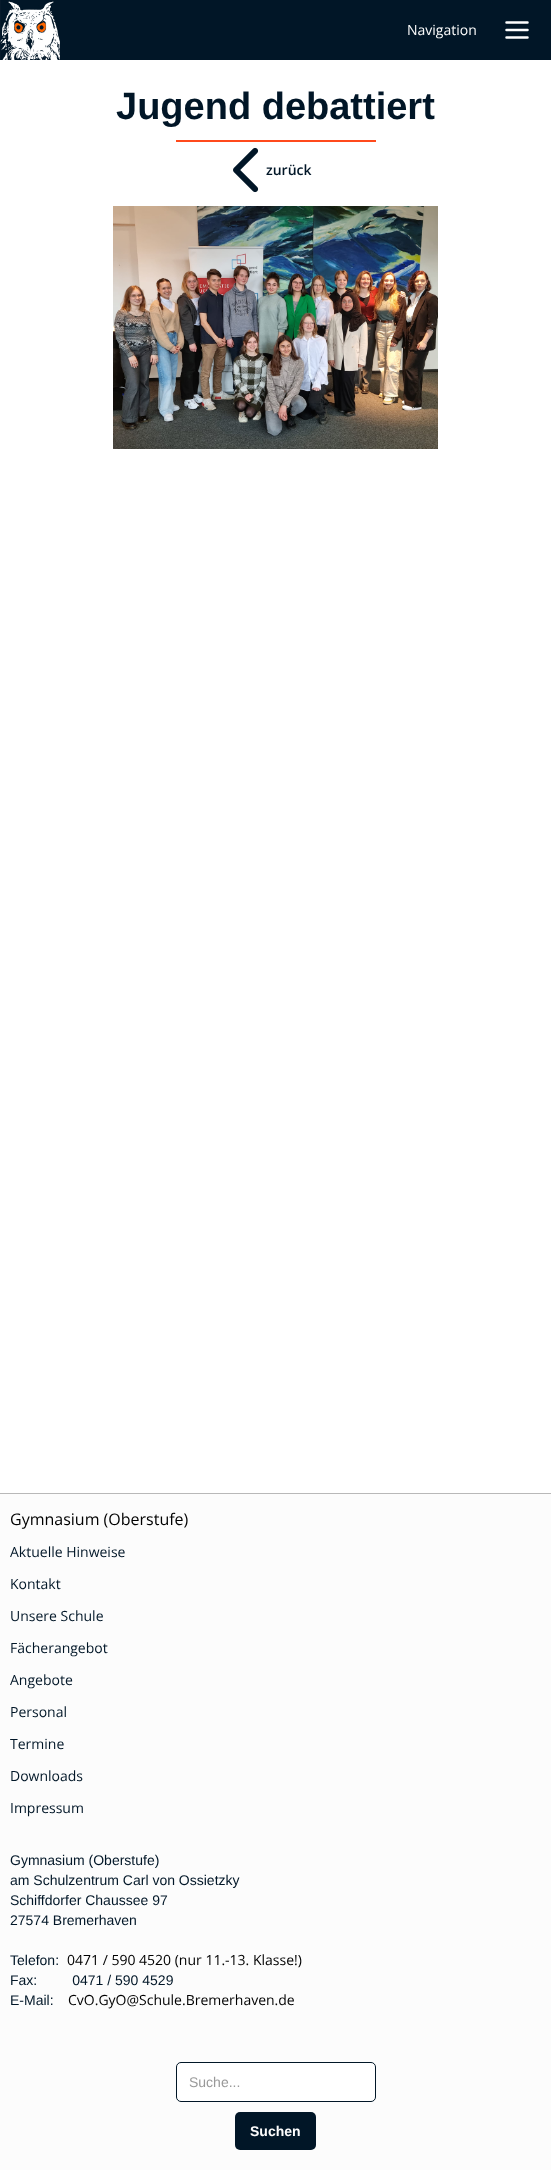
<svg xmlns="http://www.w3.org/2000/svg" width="551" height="2170">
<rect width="100%" height="100%" fill="#fff"/>
<rect x="60" width="491" height="60" fill="#011627"/>
<image x="0" y="0" width="60" height="60" href="media/1.png"/>
<text x="407" y="35" style="font-family:Open Sans;font-size:14px;fill:#fcfcfc">Navigation</text>
<path d="M527.5 37.5h-21m21-7.5h-21m21-7.5h-21" fill="none" stroke="#fff" stroke-width="2.5" stroke-linecap="round" stroke-linejoin="round"/>
<text x="116" y="119" style="font-family:Liberation Sans;font-size:38px;font-weight:bold;fill:#011627">Jugend debattiert</text>
<rect x="176" y="140" width="200" height="2" fill="#ff4a1c"/>
<image x="233" y="147" width="26" height="46" href="media/2.png"/>
<text x="266" y="175" style="font-family:Open Sans;font-size:14px;font-weight:600;fill:#011627">zurück</text>
<image x="113" y="206" width="325" height="243" href="media/3.png"/>
<rect y="1494" width="551" height="676" fill="#fcfcfc"/>
<rect y="1493" width="551" height="1" fill="#b8b8b8"/>
<text x="10" y="1525" style="font-family:Open Sans;font-size:16px;fill:#000">Gymnasium (Oberstufe)</text>
<text x="10" y="1557" style="font-family:Open Sans;font-size:14px;fill:#011627">Aktuelle Hinweise</text>
<text x="10" y="1589" style="font-family:Open Sans;font-size:14px;fill:#011627">Kontakt</text>
<text x="10" y="1621" style="font-family:Open Sans;font-size:14px;fill:#011627">Unsere Schule</text>
<text x="10" y="1653" style="font-family:Open Sans;font-size:14px;fill:#011627">Fächerangebot</text>
<text x="10" y="1685" style="font-family:Open Sans;font-size:14px;fill:#011627">Angebote</text>
<text x="10" y="1717" style="font-family:Open Sans;font-size:14px;fill:#011627">Personal</text>
<text x="10" y="1749" style="font-family:Open Sans;font-size:14px;fill:#011627">Termine</text>
<text x="10" y="1781" style="font-family:Open Sans;font-size:14px;fill:#011627">Downloads</text>
<text x="10" y="1813" style="font-family:Open Sans;font-size:14px;fill:#011627">Impressum</text>
<text x="10" y="1865" style="font-family:Liberation Sans;font-size:14px;fill:#011627">Gymnasium (Oberstufe)</text>
<text x="10" y="1885" style="font-family:Liberation Sans;font-size:14px;fill:#011627">am Schulzentrum Carl von Ossietzky</text>
<text x="10" y="1905" style="font-family:Liberation Sans;font-size:14px;fill:#011627">Schiffdorfer Chaussee 97</text>
<text x="10" y="1925" style="font-family:Liberation Sans;font-size:14px;fill:#011627">27574 Bremerhaven</text>
<text x="10" y="1965" style="font-family:Liberation Sans;font-size:14px;fill:#011627">Telefon:</text>
<text x="67" y="1965" style="font-family:Open Sans;font-size:14px;fill:#000">0471 / 590 4520 (nur 11.-13. Klasse!)</text>
<text x="10" y="1985" style="font-family:Liberation Sans;font-size:14px;fill:#011627" xml:space="preserve">Fax:         0471 / 590 4529</text>
<text x="10" y="2005" style="font-family:Liberation Sans;font-size:14px;fill:#011627">E-Mail:</text>
<text x="68" y="2005" style="font-family:Open Sans;font-size:14px;fill:#000">CvO.GyO@Schule.Bremerhaven.de</text>
<rect x="176.5" y="2062.5" width="199" height="39" rx="4.5" fill="#fff" stroke="#011627"/>
<text x="189" y="2087" style="font-family:Liberation Sans;font-size:14px;fill:#999">Suche...</text>
<rect x="235" y="2112" width="81" height="38" rx="5" fill="#011627"/>
<text x="250" y="2136" style="font-family:Liberation Sans;font-size:14px;font-weight:bold;fill:#fcfcfc">Suchen</text>
</svg>
